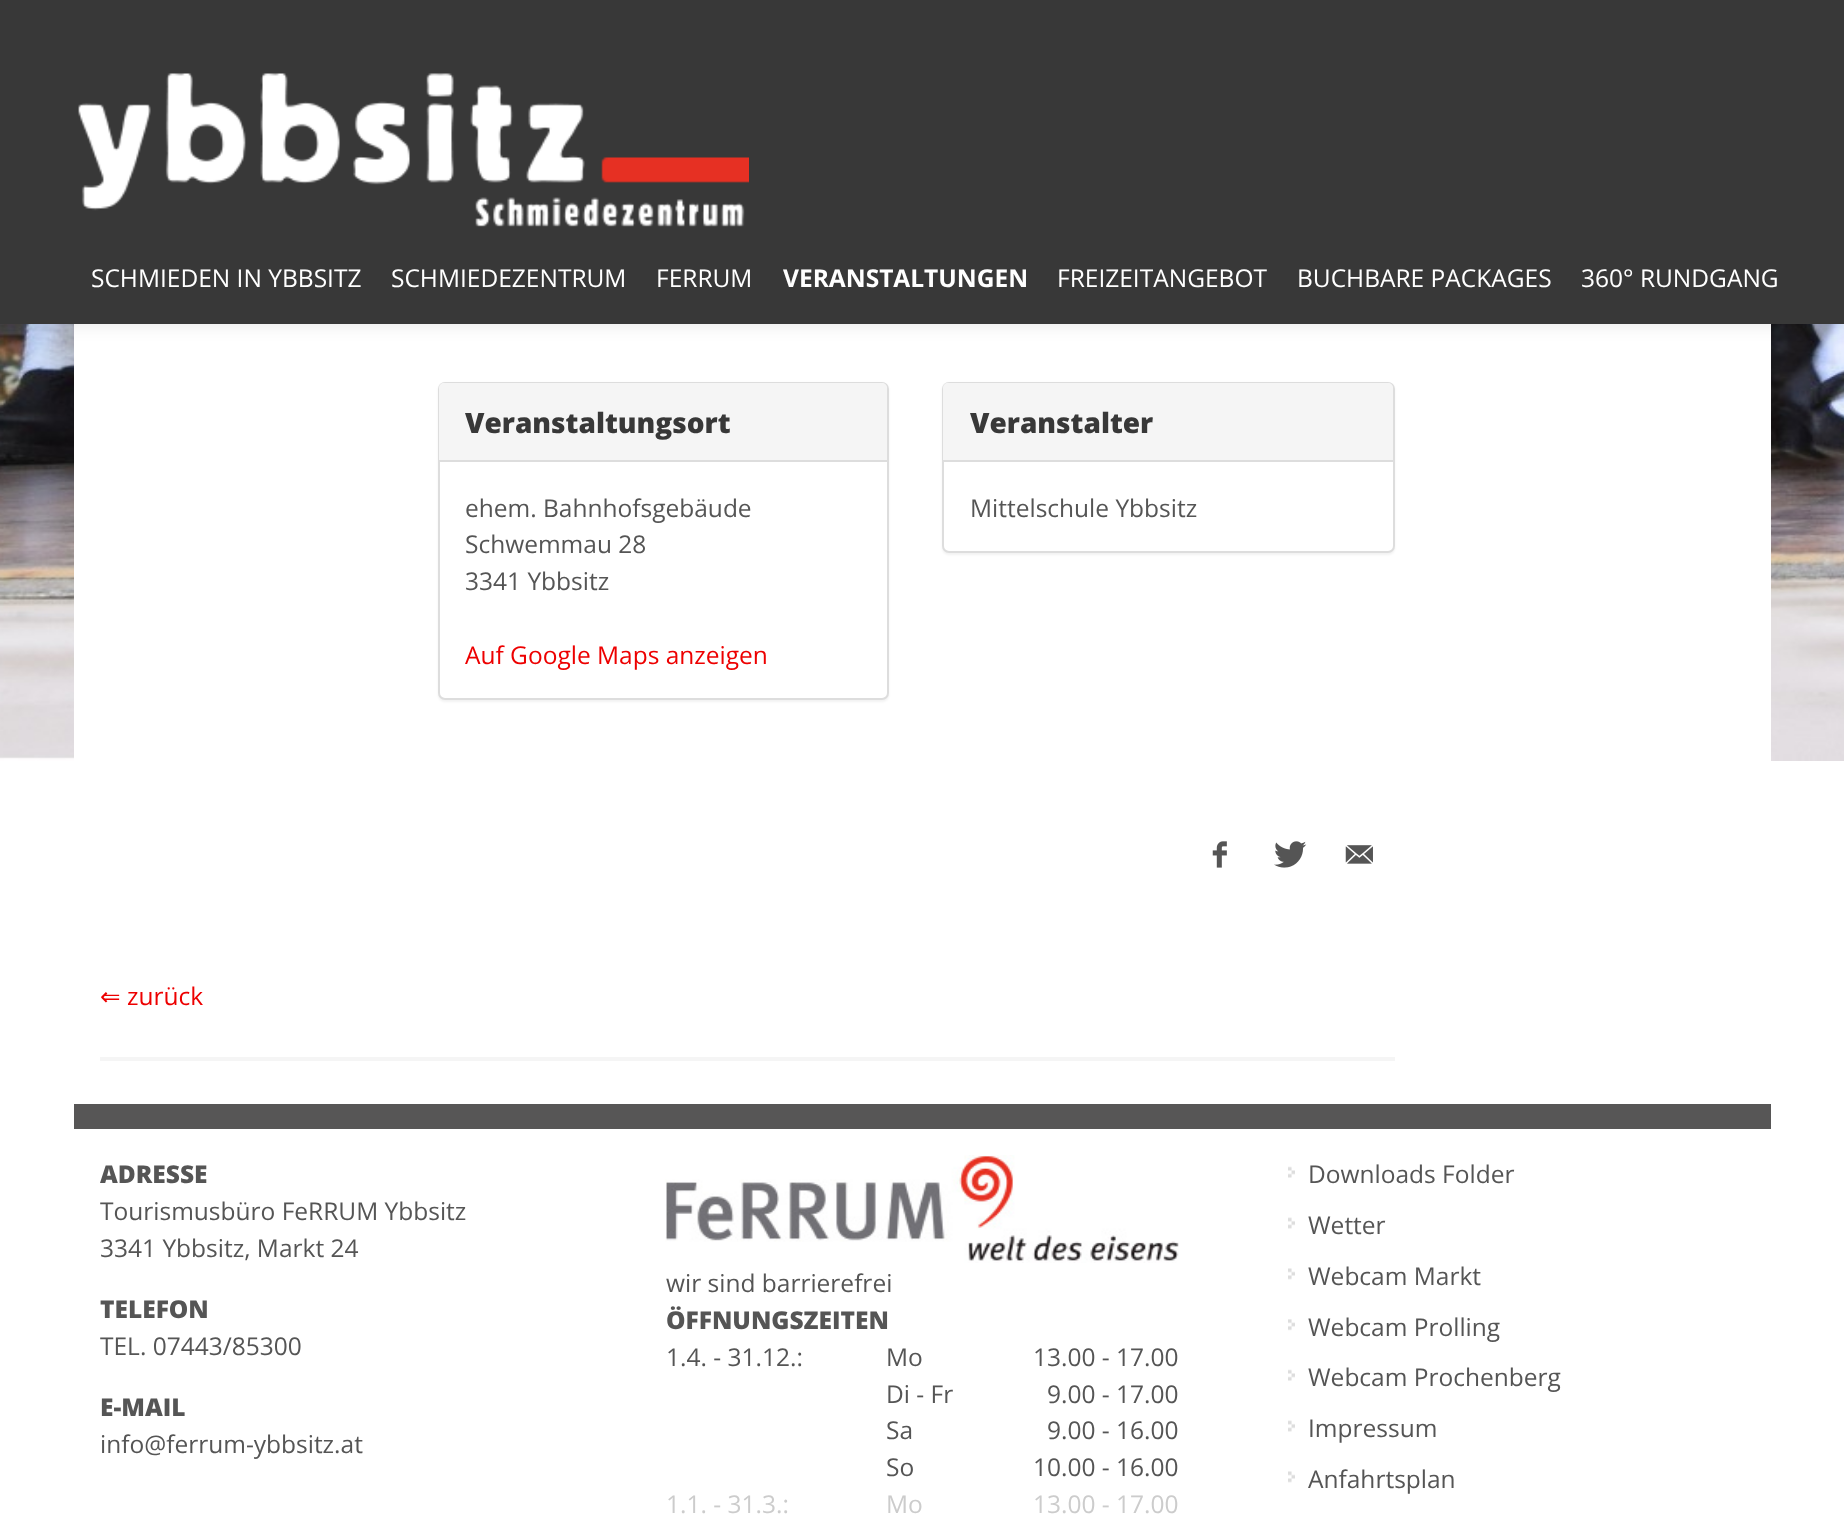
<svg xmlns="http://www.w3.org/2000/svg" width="1844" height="1528">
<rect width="100%" height="100%" fill="#fff"/>
<image x="0" y="324" width="1844" height="437" href="media/1.png"/>
<rect x="74" y="324" width="1697" height="437" fill="#fff"/>
<rect width="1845" height="324" fill="#0000001a" filter="blur(9px)"/>
<rect width="1844" height="324" fill="#383838"/>
<image x="78" y="73" width="671" height="154" href="media/2.png"/>
<text x="91" y="287" style="font-family:Open Sans;font-size:24.5px;fill:#fff">SCHMIEDEN IN YBBSITZ</text>
<text x="391" y="287" style="font-family:Open Sans;font-size:24.5px;fill:#fff">SCHMIEDEZENTRUM</text>
<text x="656" y="287" style="font-family:Open Sans;font-size:24.5px;fill:#fff">FERRUM</text>
<text x="783" y="287" style="font-family:Open Sans;font-size:24.5px;font-weight:bold;fill:#fff">VERANSTALTUNGEN</text>
<text x="1057" y="287" style="font-family:Open Sans;font-size:24.5px;fill:#fff">FREIZEITANGEBOT</text>
<text x="1297" y="287" style="font-family:Open Sans;font-size:24.5px;fill:#fff">BUCHBARE PACKAGES</text>
<text x="1581" y="287" style="font-family:Open Sans;font-size:24.5px;fill:#fff">360° RUNDGANG</text>
<rect x="100" y="1057" width="1295" height="4" fill="#f5f5f5"/>
<rect x="438" y="383" width="451" height="319" rx="7" fill="#0000000d" filter="blur(1px)"/>
<rect x="439" y="383" width="449" height="316" rx="6" fill="#fff" stroke="#ddd" stroke-width="2"/>
<path d="M444 383h438c3 0 5 2 5 5v74h-448v-74c0-3 2-5 5-5z" fill="#f5f5f5"/>
<rect x="439" y="460" width="448" height="2" fill="#ddd"/>
<text x="465" y="433" style="font-family:Open Sans;font-size:28px;font-weight:800;fill:#383838">Veranstaltungsort</text>
<text x="465" y="517" style="font-family:Open Sans;font-size:24.5px;fill:#555">ehem. Bahnhofsgebäude</text>
<text x="465" y="553" style="font-family:Open Sans;font-size:24.5px;fill:#555">Schwemmau 28</text>
<text x="465" y="590" style="font-family:Open Sans;font-size:24.5px;fill:#555">3341 Ybbsitz</text>
<text x="465" y="664" style="font-family:Open Sans;font-size:24.5px;fill:#ed0000">Auf Google Maps anzeigen</text>
<rect x="942" y="383" width="453" height="172" rx="7" fill="#0000000d" filter="blur(1px)"/>
<rect x="943" y="383" width="451" height="169" rx="6" fill="#fff" stroke="#ddd" stroke-width="2"/>
<path d="M948 383h440c3 0 5 2 5 5v74h-450v-74c0-3 2-5 5-5z" fill="#f5f5f5"/>
<rect x="943" y="460" width="450" height="2" fill="#ddd"/>
<text x="970" y="433" style="font-family:Open Sans;font-size:28px;font-weight:800;fill:#383838">Veranstalter</text>
<text x="970" y="517" style="font-family:Open Sans;font-size:24.5px;fill:#555">Mittelschule Ybbsitz</text>
<image x="1212" y="841" width="15" height="27" href="media/3.png"/>
<image x="1274" y="841" width="33" height="27" href="media/4.png"/>
<image x="1345" y="845" width="28" height="19" href="media/5.png"/>
<text x="100" y="1005" style="font-family:DejaVu Sans;font-size:24.5px;fill:#ed0000">⇐</text>
<text x="127" y="1005" style="font-family:Open Sans;font-size:24.5px;fill:#ed0000">zurück</text>
<rect x="74" y="1104" width="1697" height="25" fill="#575656"/>
<text x="100" y="1183" style="font-family:Open Sans;font-size:24.5px;font-weight:800;fill:#555">ADRESSE</text>
<text x="100" y="1220" style="font-family:Open Sans;font-size:24.5px;fill:#555">Tourismusbüro FeRRUM Ybbsitz</text>
<text x="100" y="1257" style="font-family:Open Sans;font-size:24.5px;fill:#555">3341 Ybbsitz, Markt 24</text>
<text x="100" y="1318" style="font-family:Open Sans;font-size:24.5px;font-weight:800;fill:#555">TELEFON</text>
<text x="100" y="1355" style="font-family:Open Sans;font-size:24.5px;fill:#555">TEL. 07443/85300</text>
<text x="100" y="1416" style="font-family:Open Sans;font-size:24.5px;font-weight:800;fill:#555">E-MAIL</text>
<text x="100" y="1453" style="font-family:Open Sans;font-size:24.5px;fill:#555">info@ferrum-ybbsitz.at</text>
<image x="665" y="1155" width="514" height="108" href="media/6.png"/>
<text x="666" y="1292" style="font-family:Open Sans;font-size:24.5px;fill:#555">wir sind barrierefrei</text>
<text x="666" y="1329" style="font-family:Open Sans;font-size:24.5px;font-weight:800;fill:#555">ÖFFNUNGSZEITEN</text>
<text x="666" y="1366" style="font-family:Open Sans;font-size:24.5px;fill:#555">1.4. - 31.12.:</text>
<text x="886" y="1366" style="font-family:Open Sans;font-size:24.5px;fill:#555">Mo</text>
<text x="1033" y="1366" style="font-family:Open Sans;font-size:24.5px;fill:#555">13.00 - 17.00</text>
<text x="886" y="1403" style="font-family:Open Sans;font-size:24.5px;fill:#555">Di - Fr</text>
<text x="1047" y="1403" style="font-family:Open Sans;font-size:24.5px;fill:#555">9.00 - 17.00</text>
<text x="886" y="1439" style="font-family:Open Sans;font-size:24.5px;fill:#555">Sa</text>
<text x="1047" y="1439" style="font-family:Open Sans;font-size:24.5px;fill:#555">9.00 - 16.00</text>
<text x="886" y="1476" style="font-family:Open Sans;font-size:24.5px;fill:#555">So</text>
<text x="1033" y="1476" style="font-family:Open Sans;font-size:24.5px;fill:#555">10.00 - 16.00</text>
<text x="666" y="1513" style="font-family:Open Sans;font-size:24.5px;fill:#ccc">1.1. - 31.3.:</text>
<text x="886" y="1513" style="font-family:Open Sans;font-size:24.5px;fill:#ccc">Mo</text>
<text x="1033" y="1513" style="font-family:Open Sans;font-size:24.5px;fill:#ccc">13.00 - 17.00</text>
<image x="1288" y="1166" width="7" height="12" href="media/7.png"/>
<text x="1308" y="1183" style="font-family:Open Sans;font-size:24.5px;fill:#555">Downloads Folder</text>
<image x="1288" y="1217" width="7" height="12" href="media/8.png"/>
<text x="1308" y="1234" style="font-family:Open Sans;font-size:24.5px;fill:#555">Wetter</text>
<image x="1288" y="1268" width="7" height="12" href="media/9.png"/>
<text x="1308" y="1285" style="font-family:Open Sans;font-size:24.5px;fill:#555">Webcam Markt</text>
<image x="1288" y="1319" width="7" height="12" href="media/10.png"/>
<text x="1308" y="1336" style="font-family:Open Sans;font-size:24.5px;fill:#555">Webcam Prolling</text>
<image x="1288" y="1369" width="7" height="12" href="media/7.png"/>
<text x="1308" y="1386" style="font-family:Open Sans;font-size:24.5px;fill:#555">Webcam Prochenberg</text>
<image x="1288" y="1420" width="7" height="12" href="media/8.png"/>
<text x="1308" y="1437" style="font-family:Open Sans;font-size:24.5px;fill:#555">Impressum</text>
<image x="1288" y="1471" width="7" height="12" href="media/9.png"/>
<text x="1308" y="1488" style="font-family:Open Sans;font-size:24.5px;fill:#555">Anfahrtsplan</text>
</svg>
